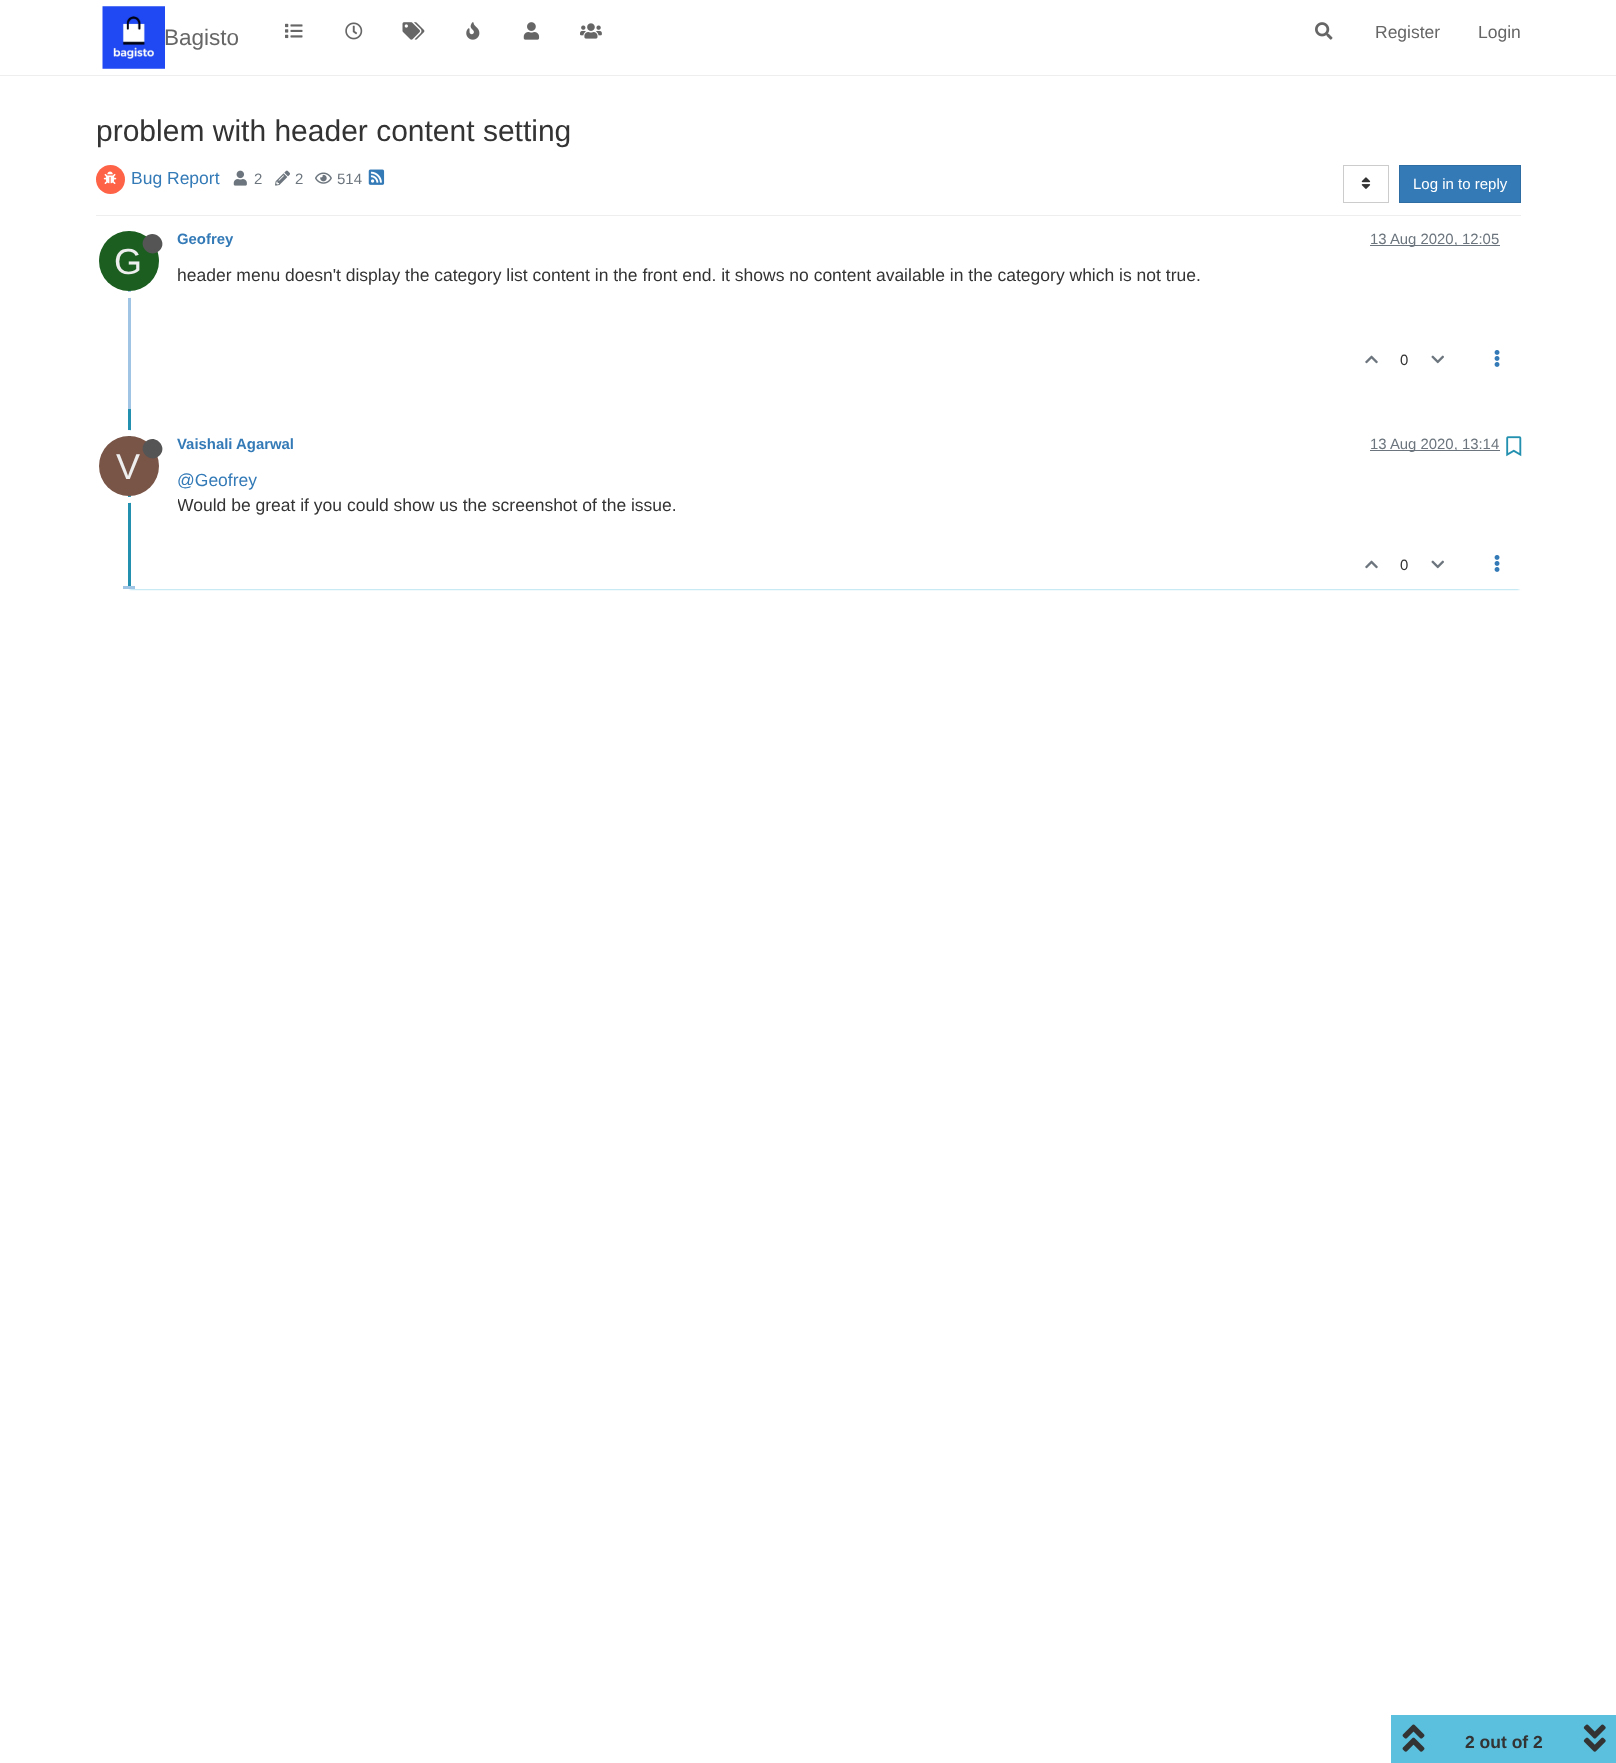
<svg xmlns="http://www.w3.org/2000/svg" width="1616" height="1763">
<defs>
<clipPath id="clip1"><path d="M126 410h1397v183h-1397zm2-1h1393v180h-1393z" clip-rule="evenodd"/></clipPath>
<clipPath id="clip2"><rect x="178" y="468" width="1343" height="75"/></clipPath>
</defs>
<rect width="100%" height="100%" fill="#fff"/>
<rect y="75" width="1616" height="1" fill="#eee"/>
<image x="102" y="6" width="63" height="63" href="media/1.png"/>
<text x="164" y="45" style="font-family:Liberation Sans;font-size:22.5px;fill:#666">Bagisto</text>
<image x="285" y="23" width="18" height="16" href="media/2.png"/>
<image x="345" y="22" width="18" height="18" href="media/3.png"/>
<image x="402" y="22" width="23" height="18" href="media/4.png"/>
<image x="466" y="22" width="14" height="18" href="media/5.png"/>
<image x="523" y="22" width="17" height="18" href="media/6.png"/>
<image x="580" y="23" width="22" height="16" href="media/7.png"/>
<image x="1315" y="22" width="18" height="18" href="media/8.png"/>
<text x="1375" y="38" style="font-family:Liberation Sans;font-size:17.5px;fill:#666">Register</text>
<text x="1478" y="38" style="font-family:Liberation Sans;font-size:17.5px;fill:#666">Login</text>
<text x="96" y="141" style="font-family:Liberation Sans;font-size:30px;fill:#333">problem with header content setting</text>
<rect x="96" y="215" width="1425" height="1" fill="#eee"/>
<circle cx="110.5" cy="179.5" r="14.5" fill="#ff6347"/>
<image x="103" y="171" width="14" height="13" href="media/9.png"/>
<text x="131" y="184" style="font-family:Liberation Sans;font-size:17.5px;fill:#337ab7">Bug Report</text>
<image x="233" y="170" width="14" height="16" href="media/10.png"/>
<text x="254" y="184" style="font-family:Liberation Sans;font-size:15px;fill:#6c757d">2</text>
<image x="275" y="170" width="15" height="16" href="media/11.png"/>
<text x="295" y="184" style="font-family:Liberation Sans;font-size:15px;fill:#6c757d">2</text>
<image x="315" y="172" width="17" height="12" href="media/12.png"/>
<text x="337" y="184" style="font-family:Liberation Sans;font-size:15px;fill:#6c757d">514</text>
<image x="368" y="169" width="17" height="16" href="media/13.png"/>
<rect x="1343.5" y="165.5" width="45" height="37" fill="none" stroke="#ccc"/>
<image x="1361" y="177" width="10" height="12" href="media/14.png"/>
<rect x="1399.5" y="165.5" width="121" height="37" fill="#337ab7" stroke="#2e6da4"/>
<text x="1413" y="189" style="font-family:Liberation Sans;font-size:15px;fill:#fff">Log in to reply</text>
<rect x="128" y="229" width="3" height="180" fill="#a0c4e4"/>
<text x="177" y="244" style="font-family:Liberation Sans;font-size:14.9px;font-weight:bold;fill:#337ab7">Geofrey</text>
<rect x="1370" y="245" width="130" height="1" fill="#6c757d"/>
<text x="1370" y="244" style="font-family:Liberation Sans;font-size:14.9px;fill:#6c757d">13 Aug 2020, 12:05</text>
<rect x="96" y="228" width="66" height="67" rx="33" fill="none" stroke="#fff" stroke-width="6"/>
<circle cx="129" cy="261" r="30" fill="#1b5e20"/>
<path d="M145.5 237c9-9 23 4.5 14 13.5c-9 9-23-4.5-14-13.5z" fill="#555"/>
<text x="114" y="274" style="font-family:Liberation Sans;font-size:36px;fill:#eee">G</text>
<text x="177" y="281" style="font-family:Liberation Sans;font-size:17.5px;fill:#333">header menu doesn't display the category list content in the front end. it shows no content available in the category which is not true.</text>
<image x="1365" y="355" width="13" height="9" href="media/15.png"/>
<text x="1400" y="365" style="font-family:Liberation Sans;font-size:14.9px;fill:#333">0</text>
<image x="1431" y="355" width="13" height="9" href="media/16.png"/>
<image x="1494" y="350" width="6" height="17" href="media/17.png"/>
<g clip-path="url(#clip1)">
<rect x="130" y="414" width="1389" height="175" fill="#5bc0de" filter="blur(1px)"/>
</g>
<rect x="128" y="409" width="3" height="180" fill="#2390b0"/>
<text x="177" y="449" style="font-family:Liberation Sans;font-size:14.9px;font-weight:bold;fill:#337ab7">Vaishali Agarwal</text>
<rect x="1370" y="450" width="130" height="1" fill="#6c757d"/>
<text x="1370" y="449" style="font-family:Liberation Sans;font-size:14.9px;fill:#6c757d">13 Aug 2020, 13:14</text>
<image x="1506" y="436" width="16" height="21" href="media/18.png"/>
<rect x="96" y="433" width="66" height="67" rx="33" fill="none" stroke="#fff" stroke-width="6"/>
<circle cx="129" cy="466" r="30" fill="#795548"/>
<path d="M145.5 442c9-9 23 4.5 14 13.5c-9 9-23-4.5-14-13.5z" fill="#555"/>
<text x="116" y="479" style="font-family:Liberation Sans;font-size:36px;fill:#eee">V</text>
<text x="177" y="486" style="font-family:Liberation Sans;font-size:17.5px;fill:#337ab7">@Geofrey</text>
<g clip-path="url(#clip2)">
<text x="177" y="511" style="font-family:Liberation Sans;font-size:17.5px;fill:#333">Would be great if you could show us the screenshot of the issue.</text>
</g>
<image x="1365" y="560" width="13" height="9" href="media/15.png"/>
<text x="1400" y="570" style="font-family:Liberation Sans;font-size:14.9px;fill:#333">0</text>
<image x="1431" y="560" width="13" height="9" href="media/16.png"/>
<image x="1494" y="555" width="6" height="17" href="media/17.png"/>
<rect x="123" y="586" width="12" height="3" fill="#a0c4e4"/>
<rect x="1391" y="1715" width="225" height="48" fill="#5bc0de"/>
<image x="1402" y="1724" width="23" height="28" href="media/19.png"/>
<text x="1465" y="1748" style="font-family:Liberation Sans;font-size:17.5px;font-weight:bold;fill:#333">2 out of 2</text>
<image x="1583" y="1724" width="23" height="28" href="media/20.png"/>
</svg>
